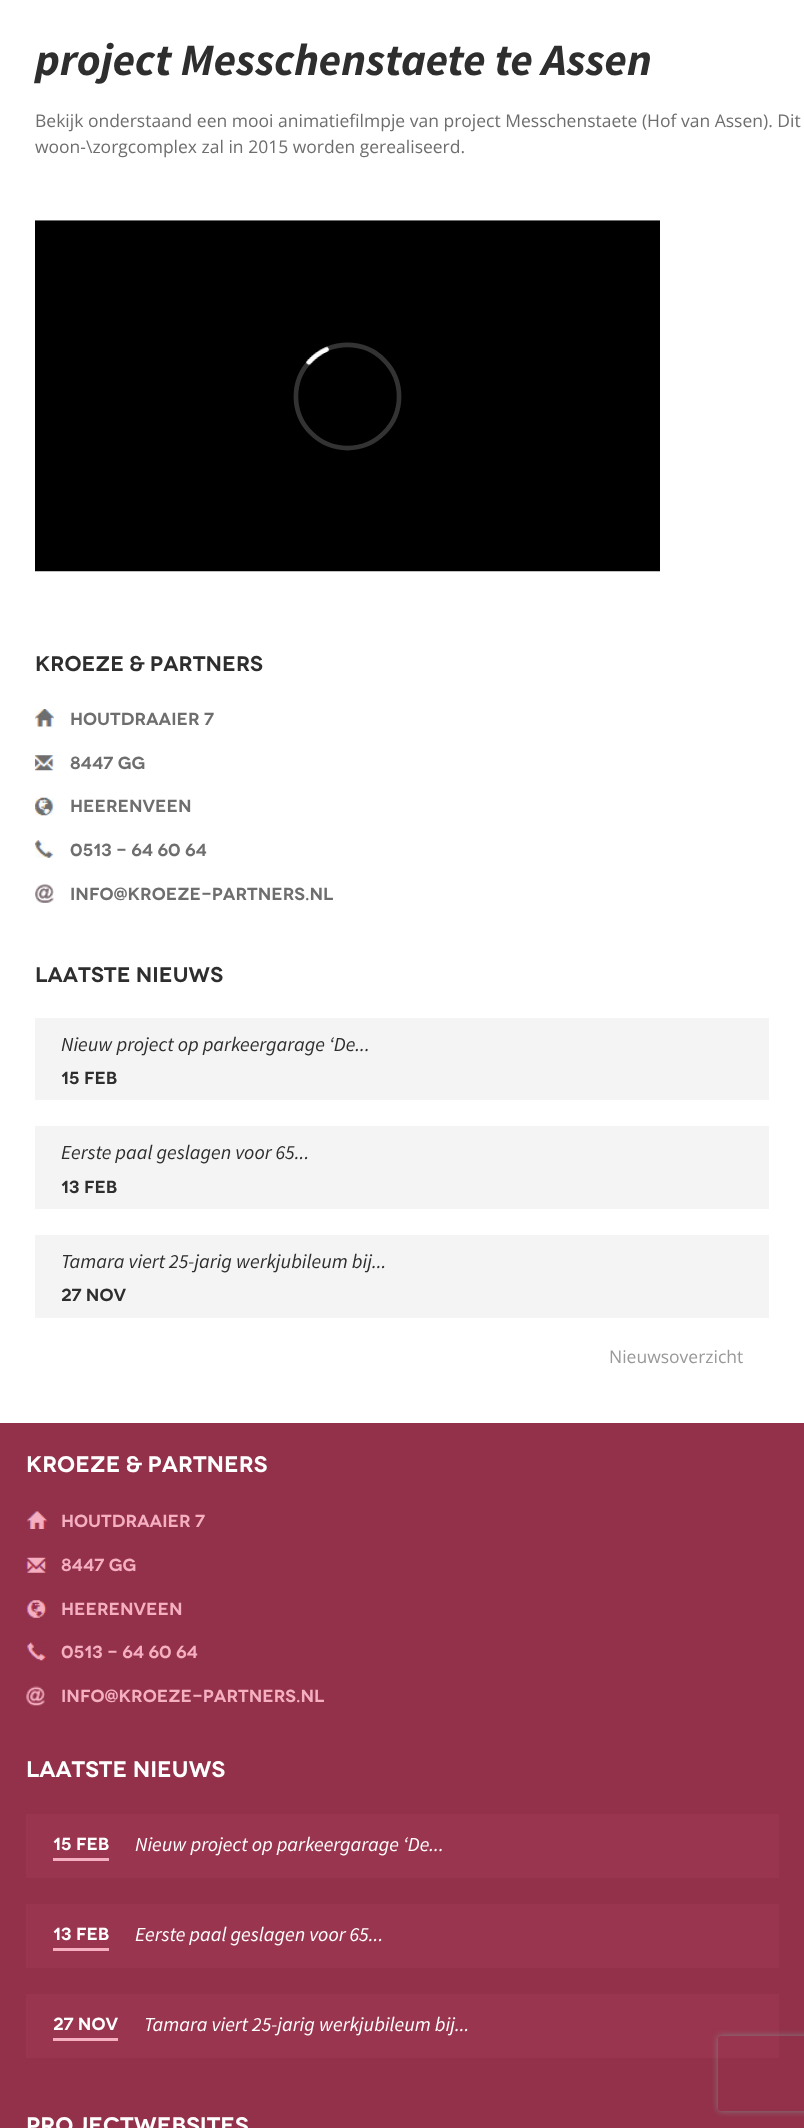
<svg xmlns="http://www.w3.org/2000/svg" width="804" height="2128">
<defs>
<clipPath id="clip1"><path d="M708 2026h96v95h-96zm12.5 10h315c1.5 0 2.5 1 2.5 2.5v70c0 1.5-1 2.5-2.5 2.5h-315c-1.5 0-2.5-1-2.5-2.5v-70c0-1.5 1-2.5 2.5-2.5z" clip-rule="evenodd"/></clipPath>
</defs>
<rect width="100%" height="100%" fill="#fff"/>
<text x="35" y="75" style="font-family:Source Sans Pro;font-size:45px;font-weight:bold;font-style:italic;fill:#2e2e2f">project Messchenstaete te Assen</text>
<text x="35" y="127" style="font-family:Open Sans;font-size:17.5px;fill:#6e6e6e">Bekijk onderstaand een mooi animatiefilmpje van project Messchenstaete (Hof van Assen). Dit</text>
<text x="35" y="153" style="font-family:Open Sans;font-size:17.5px;fill:#6e6e6e">woon-\zorgcomplex zal in 2015 worden gerealiseerd.</text>
<image x="35" y="220" width="625" height="352" href="media/1.png"/>
<text x="35" y="671" style="font-family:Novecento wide;font-size:21.25px;font-weight:600;fill:#2e2e2f">KROEZE &amp; PARTNERS</text>
<image x="35" y="709" width="19" height="18" href="media/2.png"/>
<text x="70" y="725" style="font-family:Novecento wide;font-size:17.5px;font-weight:600;fill:#6e6e6e">HOUTDRAAIER 7</text>
<image x="35" y="755" width="19" height="16" href="media/3.png"/>
<text x="70" y="769" style="font-family:Novecento wide;font-size:17.5px;font-weight:600;fill:#6e6e6e">8447 GG</text>
<image x="35" y="797" width="19" height="19" href="media/4.png"/>
<text x="70" y="812" style="font-family:Novecento wide;font-size:17.5px;font-weight:600;fill:#6e6e6e">HEERENVEEN</text>
<image x="35" y="840" width="19" height="18" href="media/5.png"/>
<text x="70" y="856" style="font-family:Novecento wide;font-size:17.5px;font-weight:600;fill:#6e6e6e">0513 - 64 60 64</text>
<image x="35" y="884" width="19" height="19" href="media/6.png"/>
<text x="70" y="900" style="font-family:Novecento wide;font-size:17.5px;font-weight:600;fill:#6e6e6e">INFO@KROEZE-PARTNERS.NL</text>
<text x="35" y="982" style="font-family:Novecento wide;font-size:21.25px;font-weight:600;fill:#2e2e2f">LAATSTE NIEUWS</text>
<rect x="35" y="1018" width="734" height="82" fill="#f4f4f4"/>
<text x="61" y="1051" style="font-family:Source Sans Pro;font-size:20px;font-style:italic;fill:#2e2e2f">Nieuw project op parkeergarage ‘De...</text>
<text x="61" y="1084" style="font-family:Novecento wide;font-size:17.5px;font-weight:600;fill:#2e2e2f">15 FEB</text>
<rect x="35" y="1126" width="734" height="83" fill="#f4f4f4"/>
<text x="61" y="1159" style="font-family:Source Sans Pro;font-size:20px;font-style:italic;fill:#2e2e2f">Eerste paal geslagen voor 65...</text>
<text x="61" y="1193" style="font-family:Novecento wide;font-size:17.5px;font-weight:600;fill:#2e2e2f">13 FEB</text>
<rect x="35" y="1235" width="734" height="83" fill="#f4f4f4"/>
<text x="61" y="1268" style="font-family:Source Sans Pro;font-size:20px;font-style:italic;fill:#2e2e2f">Tamara viert 25-jarig werkjubileum bij...</text>
<text x="61" y="1301" style="font-family:Novecento wide;font-size:17.5px;font-weight:600;fill:#2e2e2f">27 NOV</text>
<text x="609" y="1363" style="font-family:Open Sans;font-size:17.5px;fill:#999">Nieuwsoverzicht</text>
<rect y="1423" width="804" height="705" fill="#93314a"/>
<text x="26" y="1472" style="font-family:Novecento wide;font-size:22.5px;font-weight:600;fill:#fff">KROEZE &amp; PARTNERS</text>
<image x="26" y="1511" width="22" height="18" href="media/7.png"/>
<text x="61" y="1527" style="font-family:Novecento wide;font-size:17.5px;font-weight:600;fill:#f5afc1">HOUTDRAAIER 7</text>
<image x="26" y="1557" width="21" height="16" href="media/8.png"/>
<text x="61" y="1571" style="font-family:Novecento wide;font-size:17.5px;font-weight:600;fill:#f5afc1">8447 GG</text>
<image x="26" y="1600" width="21" height="18" href="media/9.png"/>
<text x="61" y="1615" style="font-family:Novecento wide;font-size:17.5px;font-weight:600;fill:#f5afc1">HEERENVEEN</text>
<image x="26" y="1642" width="21" height="19" href="media/10.png"/>
<text x="61" y="1658" style="font-family:Novecento wide;font-size:17.5px;font-weight:600;fill:#f5afc1">0513 - 64 60 64</text>
<image x="26" y="1686" width="19" height="20" href="media/11.png"/>
<text x="61" y="1702" style="font-family:Novecento wide;font-size:17.5px;font-weight:600;fill:#f5afc1">INFO@KROEZE-PARTNERS.NL</text>
<text x="26" y="1777" style="font-family:Novecento wide;font-size:22.5px;font-weight:600;fill:#fff">Laatste nieuws</text>
<rect x="26" y="1814" width="753" height="64" fill="#9a354f"/>
<rect x="53" y="1858" width="56" height="3" fill="#f5afc1"/>
<text x="53" y="1850" style="font-family:Novecento wide;font-size:17.5px;font-weight:600;fill:#fff">15 FEB</text>
<text x="135" y="1851" style="font-family:Source Sans Pro;font-size:20px;font-style:italic;fill:#fff">Nieuw project op parkeergarage ‘De...</text>
<rect x="26" y="1904" width="753" height="64" fill="#9a354f"/>
<rect x="53" y="1948" width="56" height="3" fill="#f5afc1"/>
<text x="53" y="1940" style="font-family:Novecento wide;font-size:17.5px;font-weight:600;fill:#fff">13 FEB</text>
<text x="135" y="1941" style="font-family:Source Sans Pro;font-size:20px;font-style:italic;fill:#fff">Eerste paal geslagen voor 65...</text>
<rect x="26" y="1994" width="753" height="64" fill="#9a354f"/>
<rect x="53" y="2038" width="65" height="3" fill="#f5afc1"/>
<text x="53" y="2030" style="font-family:Novecento wide;font-size:17.5px;font-weight:600;fill:#fff">27 NOV</text>
<text x="144" y="2031" style="font-family:Source Sans Pro;font-size:20px;font-style:italic;fill:#fff">Tamara viert 25-jarig werkjubileum bij...</text>
<text x="26" y="2133" style="font-family:Novecento wide;font-size:22.5px;font-weight:600;fill:#fff">Projectwebsites</text>
<g clip-path="url(#clip1)">
<rect x="718" y="2036" width="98" height="75" rx="2.5" fill="#808080" filter="blur(3px)"/>
</g>
</svg>
